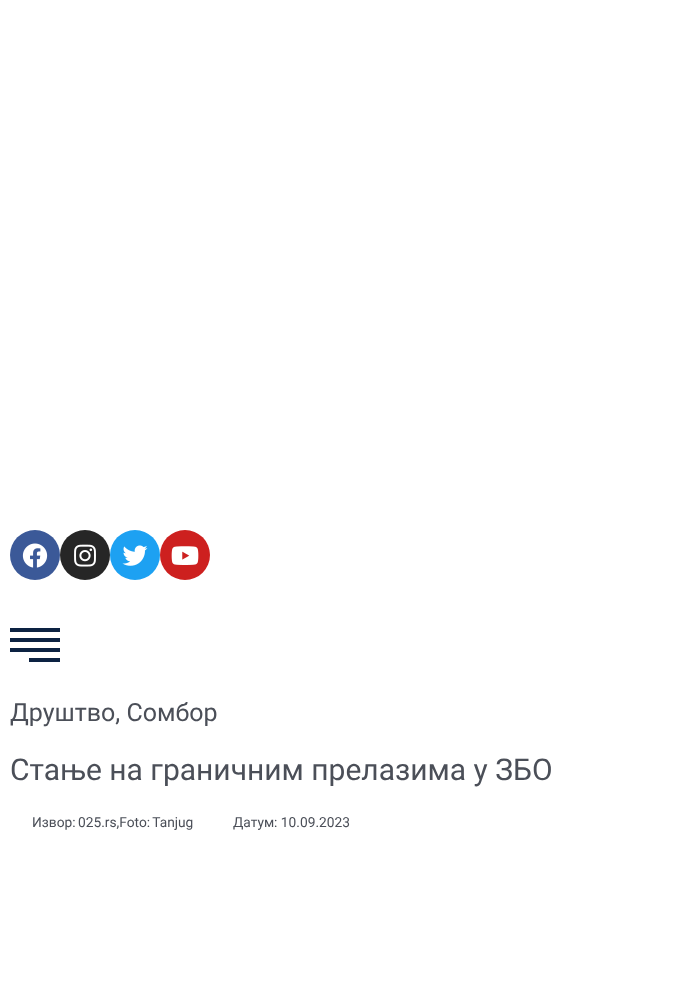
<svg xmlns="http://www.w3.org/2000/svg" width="675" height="996">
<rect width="100%" height="100%" fill="#fff"/>
<circle cx="35" cy="555" r="25" fill="#3b5998"/>
<image x="22" y="543" width="26" height="25" href="media/1.png"/>
<circle cx="85" cy="555" r="25" fill="#262626"/>
<image x="74" y="544" width="22" height="23" href="media/2.png"/>
<circle cx="135" cy="555" r="25" fill="#1da1f2"/>
<image x="122" y="545" width="26" height="21" href="media/3.png"/>
<circle cx="185" cy="555" r="25" fill="#cd201f"/>
<image x="171" y="546" width="28" height="19" href="media/4.png"/>
<rect x="10" y="628" width="50" height="4" fill="#0c2242"/>
<rect x="10" y="648" width="50" height="4" fill="#0c2242"/>
<rect x="29" y="658" width="31" height="4" fill="#0c2242"/>
<rect x="10" y="638" width="50" height="4" fill="#0c2242"/>
<text x="10" y="721" style="font-family:Roboto;font-size:25px;fill:#4b4f58">Друштво, Сомбор</text>
<text x="10" y="780" style="font-family:Roboto;font-size:30px;fill:#4b4f58">Стање на граничним прелазима у ЗБО</text>
<text x="32" y="827" word-spacing="-1" style="font-family:Roboto;font-size:13.75px;fill:#4b4f58">Извор: 025.rs,Foto: Tanjug</text>
<text x="233" y="827" style="font-family:Roboto;font-size:13.75px;fill:#4b4f58">Датум: 10.09.2023</text>
</svg>
